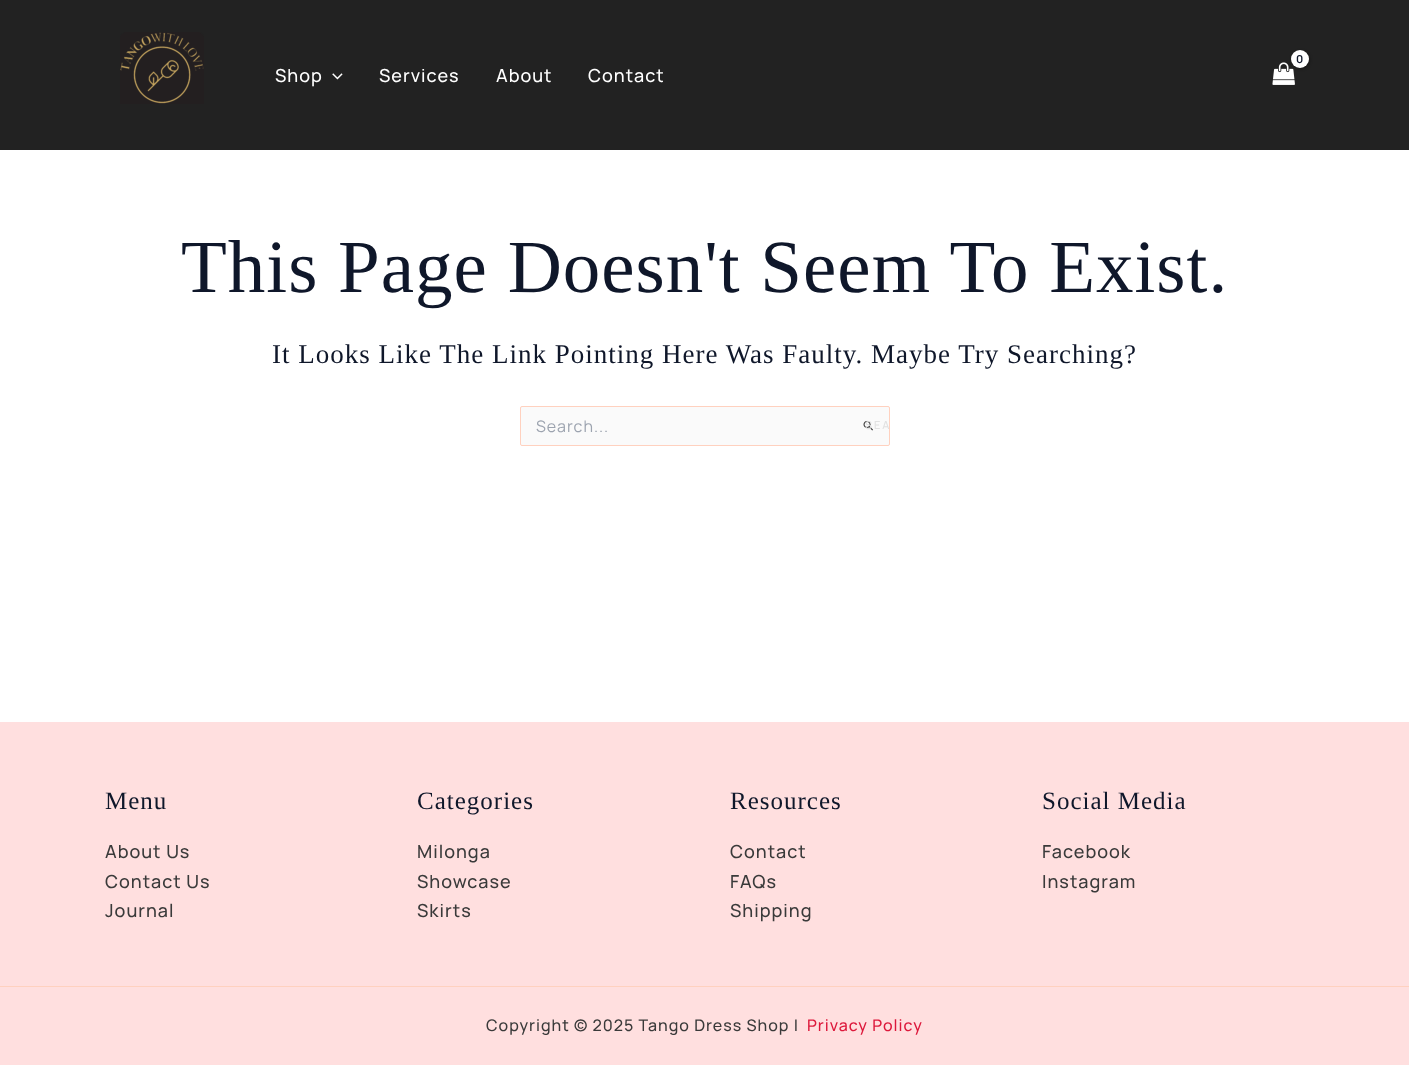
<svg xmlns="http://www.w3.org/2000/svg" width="1409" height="1065">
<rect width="100%" height="100%" fill="#fff"/>
<rect width="1409" height="150" fill="#222"/>
<image x="1272" y="62" width="23" height="23" href="media/1.png"/>
<rect x="1292" y="51" width="18" height="18" rx="9" fill="#0000004d" filter="blur(1.5px)"/>
<circle cx="1300" cy="59" r="9" fill="#fff"/>
<text x="1296" y="63" style="font-family:Manrope;font-size:11px;font-weight:bold;fill:#0f172a">0</text>
<image x="120" y="32" width="84" height="72" href="media/2.png"/>
<text x="275" y="82" style="font-family:Manrope;font-size:18px;font-weight:500;letter-spacing:1px;fill:#fff">Shop</text>
<image x="332" y="73" width="11" height="7" href="media/3.png"/>
<text x="379" y="82" style="font-family:Manrope;font-size:18px;font-weight:500;letter-spacing:1px;fill:#fff">Services</text>
<text x="496" y="82" style="font-family:Manrope;font-size:18px;font-weight:500;letter-spacing:1px;fill:#fff">About</text>
<text x="588" y="82" style="font-family:Manrope;font-size:18px;font-weight:500;letter-spacing:1px;fill:#fff">Contact</text>
<text x="181" y="292" style="font-family:Liberation Serif;font-size:75px;letter-spacing:1px;fill:#0f172a">This Page Doesn't Seem To Exist.</text>
<text x="272" y="363" style="font-family:Liberation Serif;font-size:27px;letter-spacing:1px;fill:#0f172a">It Looks Like The Link Pointing Here Was Faulty. Maybe Try Searching?</text>
<rect x="520.5" y="406.5" width="369" height="39" rx="1.5" fill="#fafafa" stroke="#ffd1bf"/>
<text x="536" y="432" style="font-family:Manrope;font-size:16px;letter-spacing:1px;fill:#9ca3af">Search...</text>
<image x="863" y="420" width="10" height="11" href="media/4.png"/>
<text x="865" y="429" style="font-family:Manrope;font-size:11px;font-weight:500;letter-spacing:2px;fill:#e1e1e1">SEA</text>
<rect y="722" width="1409" height="264" fill="#ffdfdf"/>
<text x="105" y="809" style="font-family:Liberation Serif;font-size:25px;letter-spacing:1px;fill:#0f172a">Menu</text>
<text x="105" y="858" style="font-family:Manrope;font-size:18px;font-weight:500;letter-spacing:1px;fill:#3a3a3a">About Us</text>
<text x="105" y="888" style="font-family:Manrope;font-size:18px;font-weight:500;letter-spacing:1px;fill:#3a3a3a">Contact Us</text>
<text x="105" y="917" style="font-family:Manrope;font-size:18px;font-weight:500;letter-spacing:1px;fill:#3a3a3a">Journal</text>
<text x="417" y="809" style="font-family:Liberation Serif;font-size:25px;letter-spacing:1px;fill:#0f172a">Categories</text>
<text x="417" y="858" style="font-family:Manrope;font-size:18px;font-weight:500;letter-spacing:1px;fill:#3a3a3a">Milonga</text>
<text x="417" y="888" style="font-family:Manrope;font-size:18px;font-weight:500;letter-spacing:1px;fill:#3a3a3a">Showcase</text>
<text x="417" y="917" style="font-family:Manrope;font-size:18px;font-weight:500;letter-spacing:1px;fill:#3a3a3a">Skirts</text>
<text x="730" y="809" style="font-family:Liberation Serif;font-size:25px;letter-spacing:1px;fill:#0f172a">Resources</text>
<text x="730" y="858" style="font-family:Manrope;font-size:18px;font-weight:500;letter-spacing:1px;fill:#3a3a3a">Contact</text>
<text x="730" y="888" style="font-family:Manrope;font-size:18px;font-weight:500;letter-spacing:1px;fill:#3a3a3a">FAQs</text>
<text x="730" y="917" style="font-family:Manrope;font-size:18px;font-weight:500;letter-spacing:1px;fill:#3a3a3a">Shipping</text>
<text x="1042" y="809" style="font-family:Liberation Serif;font-size:25px;letter-spacing:1px;fill:#0f172a">Social Media</text>
<text x="1042" y="858" style="font-family:Manrope;font-size:18px;font-weight:500;letter-spacing:1px;fill:#3a3a3a">Facebook</text>
<text x="1042" y="888" style="font-family:Manrope;font-size:18px;font-weight:500;letter-spacing:1px;fill:#3a3a3a">Instagram</text>
<rect y="987" width="1409" height="78" fill="#ffdfdf"/>
<rect y="986" width="1409" height="1" fill="#ffd1bf"/>
<text x="486" y="1031" style="font-family:Manrope;font-size:16px;font-weight:500;letter-spacing:1px;fill:#3a3a3a">Copyright © 2025 Tango Dress Shop |</text>
<text x="807" y="1031" style="font-family:Manrope;font-size:16px;font-weight:500;letter-spacing:1px;fill:#dd183b">Privacy Policy</text>
</svg>
